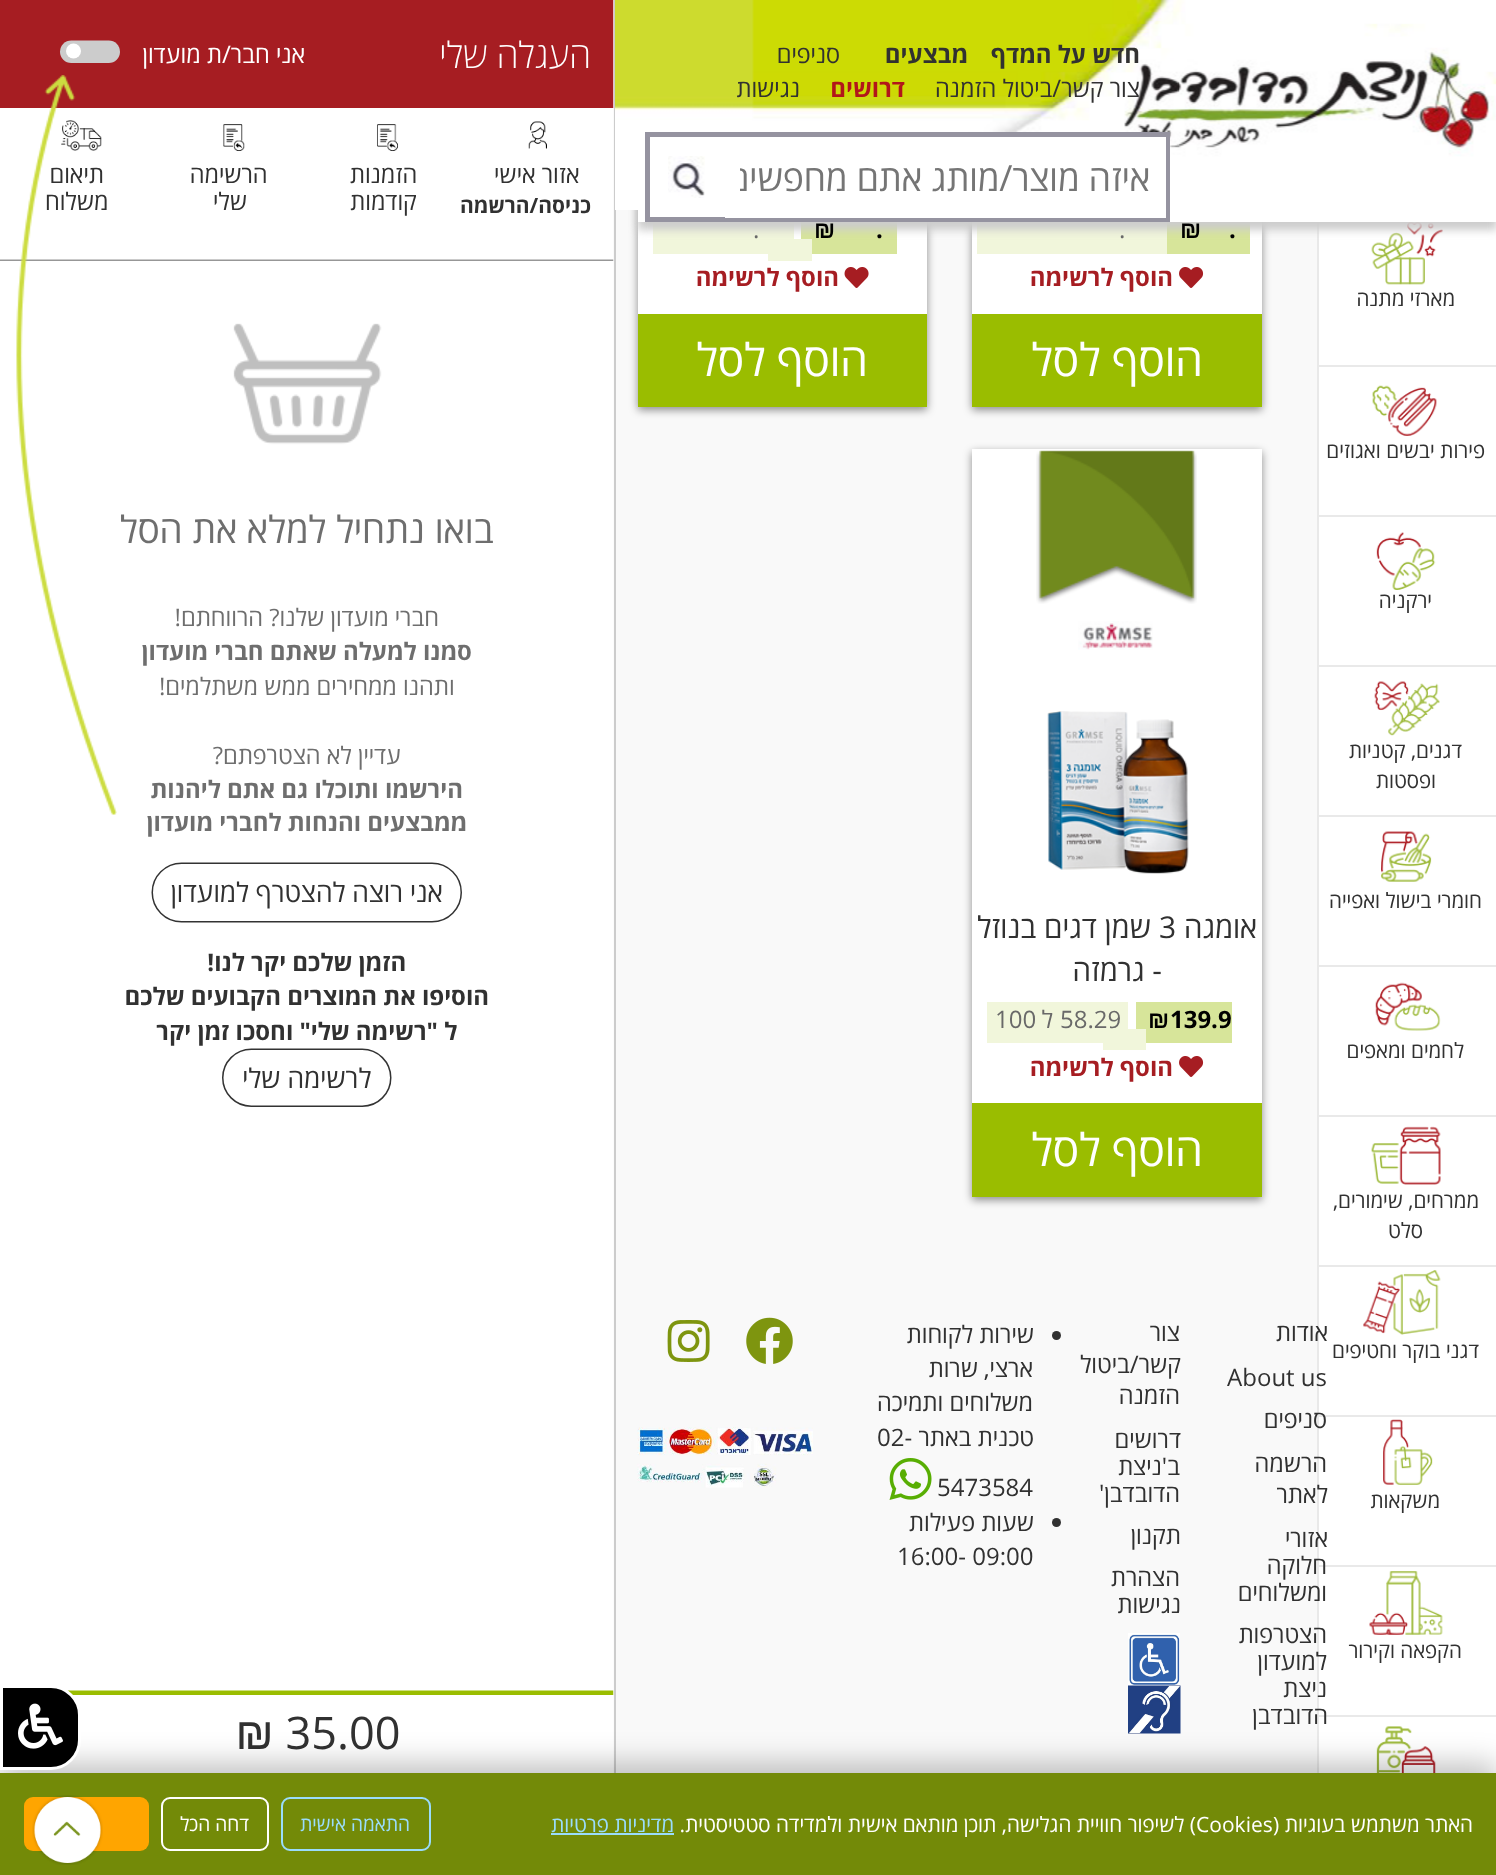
<svg xmlns="http://www.w3.org/2000/svg" width="1496" height="1875">
<defs>
<clipPath id="clip1"><rect x="740" y="152" width="411" height="49"/></clipPath>
</defs>
<rect width="100%" height="100%" fill="#f9f9f9"/>
<rect x="1318" y="214" width="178" height="1660" fill="none" stroke="#e9e9e9" stroke-width="2"/>
<rect x="1319" y="222" width="177" height="1551" fill="#fff"/>
<image x="1371" y="222" width="72" height="63" href="media/4.png"/>
<rect x="972" y="-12" width="290" height="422" fill="#00000070" filter="blur(4px)"/>
<rect x="972" y="222" width="290" height="92" fill="#fff"/>
<rect x="1167" y="222" width="83" height="32" fill="#d7e59a"/>
<rect x="977" y="222" width="190" height="32" fill="#f1f6db"/>
<rect x="638" y="-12" width="289" height="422" fill="#00000070" filter="blur(4px)"/>
<rect x="638" y="222" width="289" height="92" fill="#fff"/>
<rect x="801" y="222" width="96" height="32" fill="#d7e59a"/>
<rect x="653" y="222" width="133" height="32" fill="#f1f6db"/>
<rect x="786" y="222" width="8" height="17" fill="#f1f6db"/>
<rect x="768" y="239" width="44" height="22" fill="#f1f6db"/>
<rect x="638" y="8" width="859" height="222" fill="#ccc" filter="blur(4px)"/>
<rect x="638" y="210" width="858" height="12" fill="#fff"/>
<rect x="614" width="2" height="1773" fill="#ccc"/>
<image x="615" y="0" width="139" height="210" href="media/1.png"/>
<image x="752" y="0" width="744" height="210" href="media/2.png"/>
<text x="1140" y="63" style="font-family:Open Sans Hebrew;font-size:24px;font-weight:bold;direction:rtl;fill:#313131">חדש על המדף</text>
<text x="968" y="63" style="font-family:Open Sans Hebrew;font-size:24px;font-weight:bold;direction:rtl;fill:#313131">מבצעים</text>
<text x="840" y="63" style="font-family:Open Sans Hebrew;font-size:24px;direction:rtl;fill:#313131">סניפים</text>
<text x="1140" y="97" style="font-family:Open Sans Hebrew;font-size:24px;direction:rtl;fill:#313131">צור קשר/ביטול הזמנה</text>
<text x="905" y="97" style="font-family:Open Sans Hebrew;font-size:24px;font-weight:bold;direction:rtl;fill:#b2161a">דרושים</text>
<text x="800" y="97" style="font-family:Open Sans Hebrew;font-size:24px;direction:rtl;fill:#313131">נגישות</text>
<rect x="647.5" y="134.5" width="520" height="85" fill="none" stroke="#9593a0" stroke-width="5"/>
<rect x="725" y="137" width="441" height="81" fill="#fff"/>
<g clip-path="url(#clip1)">
<text x="1150" y="191" style="font-family:Open Sans Hebrew;font-size:36px;direction:rtl;fill:#757575">איזה מוצר/מותג אתם מחפשים?</text>
</g>
<image x="668" y="156" width="37" height="42" href="media/3.png"/>
<text x="1455" y="306" style="font-family:Open Sans Hebrew;font-size:21px;direction:rtl;fill:#313131">מארזי מתנה</text>
<image x="1372" y="385" width="65" height="51" href="media/5.png"/>
<rect x="1319" y="365" width="177" height="2" fill="#e9e9e9"/>
<text x="1485" y="458" style="font-family:Open Sans Hebrew;font-size:21px;direction:rtl;fill:#313131">פירות יבשים ואגוזים</text>
<image x="1376" y="532" width="60" height="58" href="media/6.png"/>
<rect x="1319" y="515" width="177" height="2" fill="#e9e9e9"/>
<text x="1432" y="608" style="font-family:Open Sans Hebrew;font-size:21px;direction:rtl;fill:#313131">ירקניה</text>
<image x="1374" y="681" width="66" height="55" href="media/7.png"/>
<rect x="1319" y="665" width="177" height="2" fill="#e9e9e9"/>
<text x="1462" y="758" style="font-family:Open Sans Hebrew;font-size:21px;direction:rtl;fill:#313131">דגנים, קטניות</text>
<text x="1436" y="788" style="font-family:Open Sans Hebrew;font-size:21px;direction:rtl;fill:#313131">ופסטות</text>
<image x="1381" y="831" width="51" height="51" href="media/8.png"/>
<rect x="1319" y="815" width="177" height="2" fill="#e9e9e9"/>
<text x="1482" y="908" style="font-family:Open Sans Hebrew;font-size:21px;direction:rtl;fill:#313131">חומרי בישול ואפייה</text>
<image x="1375" y="982" width="66" height="49" href="media/9.png"/>
<rect x="1319" y="965" width="177" height="2" fill="#e9e9e9"/>
<text x="1464" y="1058" style="font-family:Open Sans Hebrew;font-size:21px;direction:rtl;fill:#313131">לחמים ומאפים</text>
<image x="1371" y="1126" width="70" height="59" href="media/10.png"/>
<rect x="1319" y="1115" width="177" height="2" fill="#e9e9e9"/>
<text x="1479" y="1208" style="font-family:Open Sans Hebrew;font-size:21px;direction:rtl;fill:#313131">ממרחים, שימורים,</text>
<text x="1423" y="1238" style="font-family:Open Sans Hebrew;font-size:21px;direction:rtl;fill:#313131">סלט</text>
<image x="1363" y="1270" width="78" height="65" href="media/11.png"/>
<rect x="1319" y="1265" width="177" height="2" fill="#e9e9e9"/>
<text x="1479" y="1358" style="font-family:Open Sans Hebrew;font-size:21px;direction:rtl;fill:#313131">דגני בוקר וחטיפים</text>
<image x="1383" y="1419" width="50" height="66" href="media/12.png"/>
<rect x="1319" y="1415" width="177" height="2" fill="#e9e9e9"/>
<text x="1440" y="1508" style="font-family:Open Sans Hebrew;font-size:21px;direction:rtl;fill:#313131">משקאות</text>
<image x="1369" y="1571" width="74" height="64" href="media/13.png"/>
<rect x="1319" y="1565" width="177" height="2" fill="#e9e9e9"/>
<text x="1462" y="1658" style="font-family:Open Sans Hebrew;font-size:21px;direction:rtl;fill:#313131">הקפאה וקירור</text>
<image x="1376" y="1726" width="60" height="47" href="media/14.png"/>
<rect x="1319" y="1715" width="177" height="2" fill="#e9e9e9"/>
<text x="1229" y="238" style="font-family:Open Sans Hebrew;font-size:24px;font-weight:bold;fill:#000">.</text>
<text x="1180" y="238" style="font-family:Liberation Sans;font-size:24px;font-weight:bold;fill:#000">₪</text>
<text x="1119" y="238" style="font-family:Open Sans Hebrew;font-size:24px;fill:#696969">.</text>
<image x="1179" y="267" width="25" height="21" href="media/15.png"/>
<text x="1173" y="286" style="font-family:Open Sans Hebrew;font-size:24px;font-weight:bold;direction:rtl;fill:#a61d22">הוסף לרשימה</text>
<rect x="972" y="314" width="290" height="93" fill="#9abd00"/>
<text x="1203" y="376" style="font-family:Open Sans Hebrew;font-size:45px;direction:rtl;fill:#fff">הוסף לסל</text>
<text x="876" y="238" style="font-family:Open Sans Hebrew;font-size:24px;font-weight:bold;fill:#000">.</text>
<text x="814" y="238" style="font-family:Liberation Sans;font-size:24px;font-weight:bold;fill:#000">₪</text>
<text x="753" y="238" style="font-family:Open Sans Hebrew;font-size:24px;fill:#696969">.</text>
<image x="844" y="267" width="25" height="21" href="media/16.png"/>
<text x="839" y="286" style="font-family:Open Sans Hebrew;font-size:24px;font-weight:bold;direction:rtl;fill:#a61d22">הוסף לרשימה</text>
<rect x="638" y="314" width="289" height="93" fill="#9abd00"/>
<text x="868" y="376" style="font-family:Open Sans Hebrew;font-size:45px;direction:rtl;fill:#fff">הוסף לסל</text>
<rect x="972" y="452" width="290" height="748" fill="#00000070" filter="blur(4px)"/>
<rect x="972" y="449" width="290" height="654" fill="#fff"/>
<image x="1036" y="450" width="161" height="154" href="media/17.png"/>
<image x="1078" y="621" width="75" height="29" href="media/18.png"/>
<image x="1047" y="711" width="142" height="163" href="media/19.png"/>
<text x="1257" y="938" style="font-family:Open Sans Hebrew;font-size:30px;direction:rtl;fill:#313131">אומגה</text>
<text x="1159" y="938" style="font-family:Open Sans Hebrew;font-size:30px;fill:#313131">3</text>
<text x="1151" y="938" style="font-family:Open Sans Hebrew;font-size:30px;direction:rtl;fill:#313131">שמן דגים בנוזל</text>
<text x="1162" y="981" style="font-family:Open Sans Hebrew;font-size:30px;direction:rtl;fill:#313131">- גרמזה</text>
<rect x="1136" y="1002" width="96" height="41" fill="#d7e59a"/>
<text x="1170" y="1028" style="font-family:Open Sans Hebrew;font-size:24px;font-weight:bold;fill:#000">139.9</text>
<text x="1148" y="1028" style="font-family:Liberation Sans;font-size:24px;font-weight:bold;fill:#000">₪</text>
<rect x="987" y="1002" width="134" height="41" fill="#f1f6db"/>
<text x="1060" y="1028" style="font-family:Open Sans Hebrew;font-size:24px;fill:#696969">58.29</text>
<rect x="1121" y="1002" width="7" height="27" fill="#f1f6db"/>
<rect x="1103" y="1029" width="43" height="21" fill="#f1f6db"/>
<text x="1053" y="1028" style="font-family:Open Sans Hebrew;font-size:24px;direction:rtl;fill:#696969">ל</text>
<text x="995" y="1028" style="font-family:Open Sans Hebrew;font-size:24px;fill:#696969">100</text>
<image x="1179" y="1056" width="25" height="21" href="media/15.png"/>
<text x="1173" y="1076" style="font-family:Open Sans Hebrew;font-size:24px;font-weight:bold;direction:rtl;fill:#a61d22">הוסף לרשימה</text>
<rect x="972" y="1103" width="290" height="94" fill="#9abd00"/>
<text x="1203" y="1166" style="font-family:Open Sans Hebrew;font-size:45px;direction:rtl;fill:#fff">הוסף לסל</text>
<text x="1328" y="1341" style="font-family:Open Sans Hebrew;font-size:24px;direction:rtl;fill:#313131">אודות</text>
<text x="1227" y="1386" style="font-family:Open Sans Hebrew;font-size:24px;fill:#313131">About us</text>
<text x="1327" y="1428" style="font-family:Open Sans Hebrew;font-size:24px;direction:rtl;fill:#313131">סניפים</text>
<text x="1327" y="1472" style="font-family:Open Sans Hebrew;font-size:24px;direction:rtl;fill:#313131">הרשמה</text>
<text x="1328" y="1503" style="font-family:Open Sans Hebrew;font-size:24px;direction:rtl;fill:#313131">לאתר</text>
<text x="1328" y="1547" style="font-family:Open Sans Hebrew;font-size:24px;direction:rtl;fill:#313131">אזורי</text>
<text x="1327" y="1574" style="font-family:Open Sans Hebrew;font-size:24px;direction:rtl;fill:#313131">חלוקה</text>
<text x="1327" y="1601" style="font-family:Open Sans Hebrew;font-size:24px;direction:rtl;fill:#313131">ומשלוחים</text>
<text x="1327" y="1643" style="font-family:Open Sans Hebrew;font-size:24px;direction:rtl;fill:#313131">הצטרפות</text>
<text x="1327" y="1670" style="font-family:Open Sans Hebrew;font-size:24px;direction:rtl;fill:#313131">למועדון</text>
<text x="1327" y="1697" style="font-family:Open Sans Hebrew;font-size:24px;direction:rtl;fill:#313131">ניצת</text>
<text x="1328" y="1724" style="font-family:Open Sans Hebrew;font-size:24px;direction:rtl;fill:#313131">הדובדבן</text>
<text x="1180" y="1341" style="font-family:Open Sans Hebrew;font-size:24px;direction:rtl;fill:#313131">צור</text>
<text x="1181" y="1373" style="font-family:Open Sans Hebrew;font-size:24px;direction:rtl;fill:#313131">קשר/ביטול</text>
<text x="1180" y="1404" style="font-family:Open Sans Hebrew;font-size:24px;direction:rtl;fill:#313131">הזמנה</text>
<text x="1181" y="1448" style="font-family:Open Sans Hebrew;font-size:24px;direction:rtl;fill:#313131">דרושים</text>
<text x="1180" y="1475" style="font-family:Open Sans Hebrew;font-size:24px;direction:rtl;fill:#313131">ב'ניצת</text>
<text x="1180" y="1502" style="font-family:Open Sans Hebrew;font-size:24px;direction:rtl;fill:#313131">הדובדבן'</text>
<text x="1181" y="1544" style="font-family:Open Sans Hebrew;font-size:24px;direction:rtl;fill:#313131">תקנון</text>
<text x="1180" y="1586" style="font-family:Open Sans Hebrew;font-size:24px;direction:rtl;fill:#313131">הצהרת</text>
<text x="1181" y="1613" style="font-family:Open Sans Hebrew;font-size:24px;direction:rtl;fill:#313131">נגישות</text>
<image x="1128" y="1633" width="52" height="52" href="media/20.png"/>
<image x="1128" y="1685" width="53" height="49" href="media/21.png"/>
<circle cx="1056.5" cy="1335.5" r="4.5" fill="#313131"/>
<text x="1034" y="1343" style="font-family:Open Sans Hebrew;font-size:24px;direction:rtl;fill:#313131">שירות לקוחות</text>
<text x="1033" y="1377" style="font-family:Open Sans Hebrew;font-size:24px;direction:rtl;fill:#313131">ארצי,</text>
<text x="978" y="1377" style="font-family:Open Sans Hebrew;font-size:24px;direction:rtl;fill:#313131">שרות</text>
<text x="1033" y="1411" style="font-family:Open Sans Hebrew;font-size:24px;direction:rtl;fill:#313131">משלוחים ותמיכה</text>
<text x="1034" y="1446" style="font-family:Open Sans Hebrew;font-size:24px;direction:rtl;fill:#313131">טכנית באתר</text>
<text x="877" y="1446" style="font-family:Open Sans Hebrew;font-size:24px;fill:#313131">02-</text>
<text x="937" y="1496" style="font-family:Open Sans Hebrew;font-size:24px;fill:#313131">5473584</text>
<image x="889" y="1458" width="43" height="42" href="media/22.png"/>
<circle cx="1056.5" cy="1522.5" r="4.5" fill="#313131"/>
<text x="1034" y="1531" style="font-family:Open Sans Hebrew;font-size:24px;direction:rtl;fill:#313131">שעות פעילות</text>
<text x="897" y="1565" style="font-family:Open Sans Hebrew;font-size:24px;fill:#313131">16:00- 09:00</text>
<image x="746" y="1317" width="47" height="47" href="media/23.png"/>
<image x="667" y="1320" width="43" height="42" href="media/24.png"/>
<image x="637" y="1427" width="176" height="61" href="media/25.png"/>
<image x="0" y="0" width="614" height="1773" href="media/26.png"/>
<rect y="1764" width="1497" height="102" fill="#00000040" filter="blur(15px)"/>
<path d="M1.5 1686.5h49.5c15.5 0 28.5 13 28.5 28.5v25c0 15.5-13 28.5-28.5 28.5h-49.5z" fill="#000" stroke="#fff" stroke-width="3"/>
<image x="18" y="1703" width="45" height="46" href="media/27.png"/>
<rect y="1773" width="1496" height="102" fill="#738a08"/>
<text x="1473" y="1832" style="font-family:Open Sans Hebrew;font-size:21px;direction:rtl;fill:#fff">האתר משתמש בעוגיות (</text>
<text x="1196" y="1832" style="font-family:Open Sans Hebrew;font-size:21px;fill:#fff">Cookies</text>
<text x="1196" y="1832" style="font-family:Open Sans Hebrew;font-size:21px;direction:rtl;fill:#fff">) לשיפור חוויית הגלישה, תוכן מותאם אישית ולמדידה סטטיסטית.</text>
<text x="674" y="1832" style="font-family:Open Sans Hebrew;font-size:21px;direction:rtl;fill:#9adcfb">מדיניות פרטיות</text>
<rect x="551" y="1833" width="123" height="2" fill="#9adcfb"/>
<rect x="282" y="1798" width="148" height="52" rx="8" fill="none" stroke="#9adcfb" stroke-width="2"/>
<text x="410" y="1831" style="font-family:Open Sans Hebrew;font-size:19.5px;direction:rtl;fill:#9adcfb">התאמה אישית</text>
<rect x="162" y="1798" width="106" height="52" rx="8" fill="none" stroke="#fff" stroke-width="2"/>
<text x="249" y="1831" style="font-family:Open Sans Hebrew;font-size:19.5px;direction:rtl;fill:#fff">דחה הכל</text>
<rect x="24" y="1797" width="125" height="54" rx="9" fill="#ffa500"/>
<image x="32" y="1795" width="71" height="70" href="media/28.png"/>
</svg>
